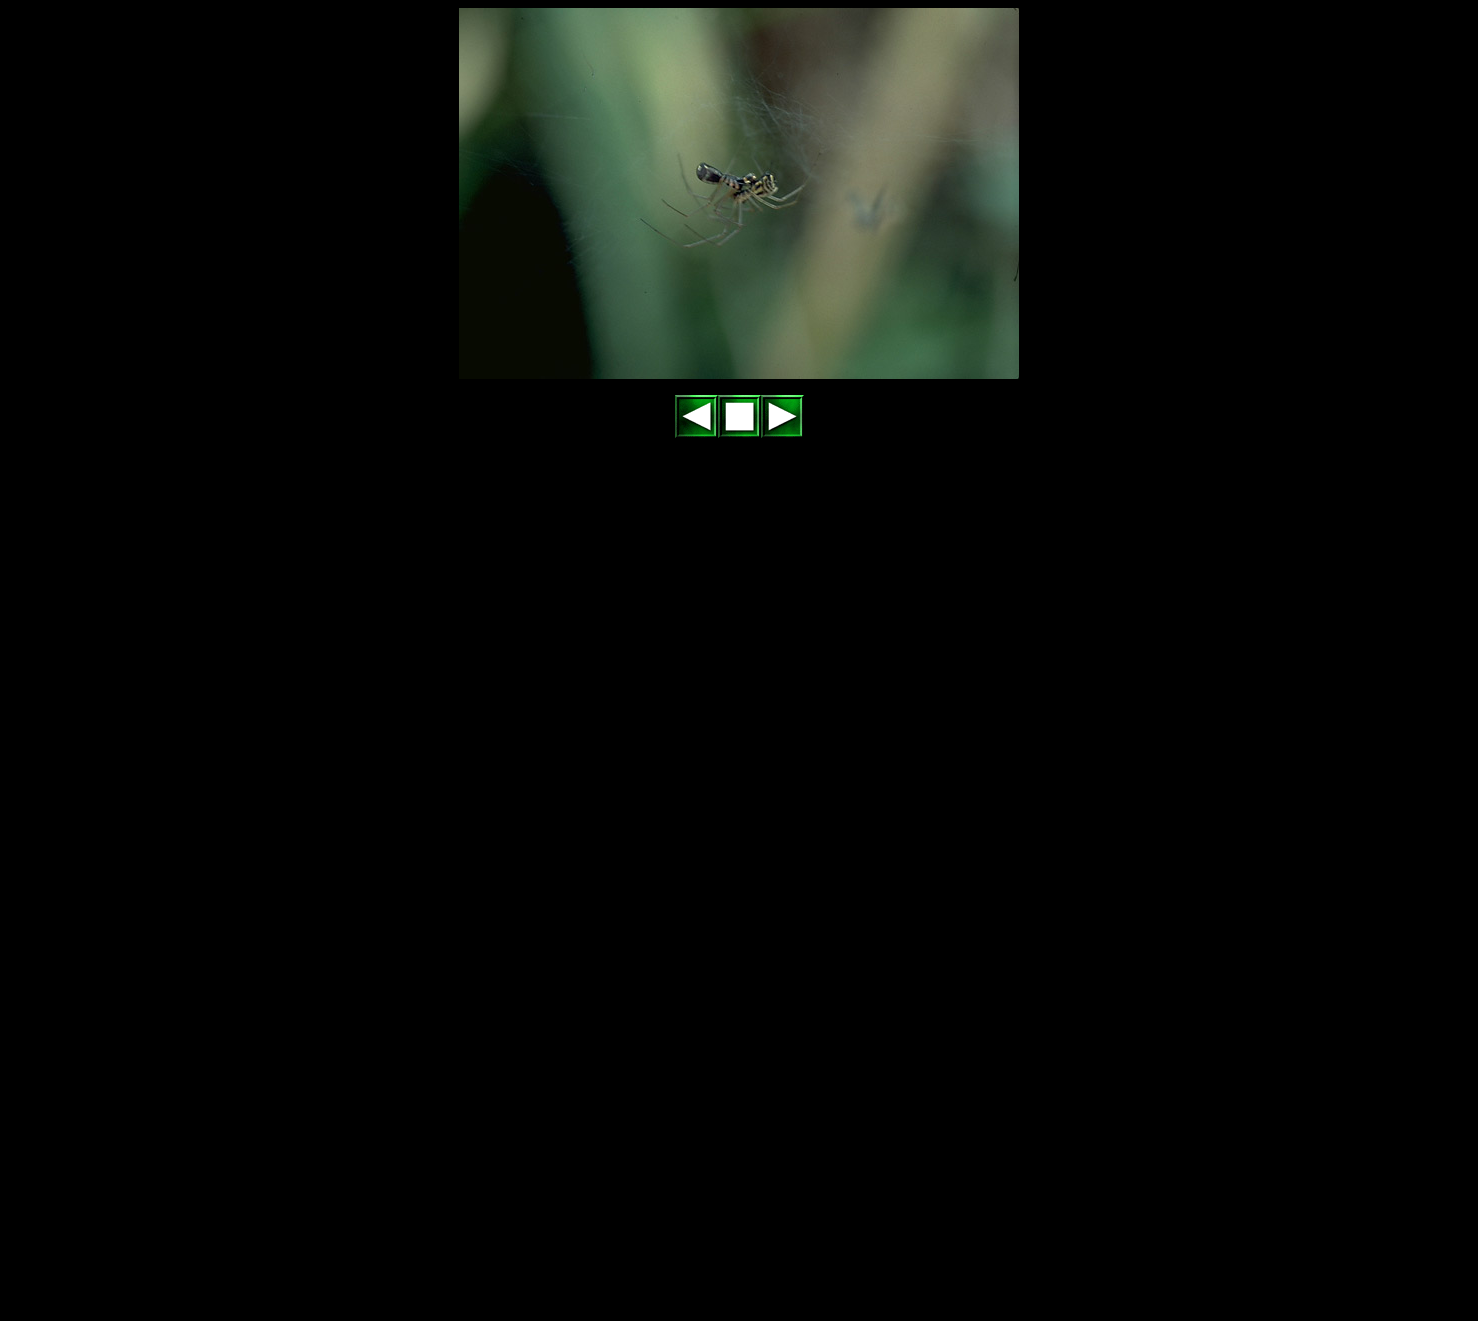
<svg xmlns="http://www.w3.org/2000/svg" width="1478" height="1321">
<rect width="100%" height="100%" fill="#000"/>
<image x="459" y="8" width="560" height="371" href="media/1.png"/>
<image x="675" y="395" width="43" height="43" href="media/2.png"/>
<image x="718" y="395" width="43" height="43" href="media/3.png"/>
<image x="761" y="395" width="43" height="43" href="media/4.png"/>
</svg>
